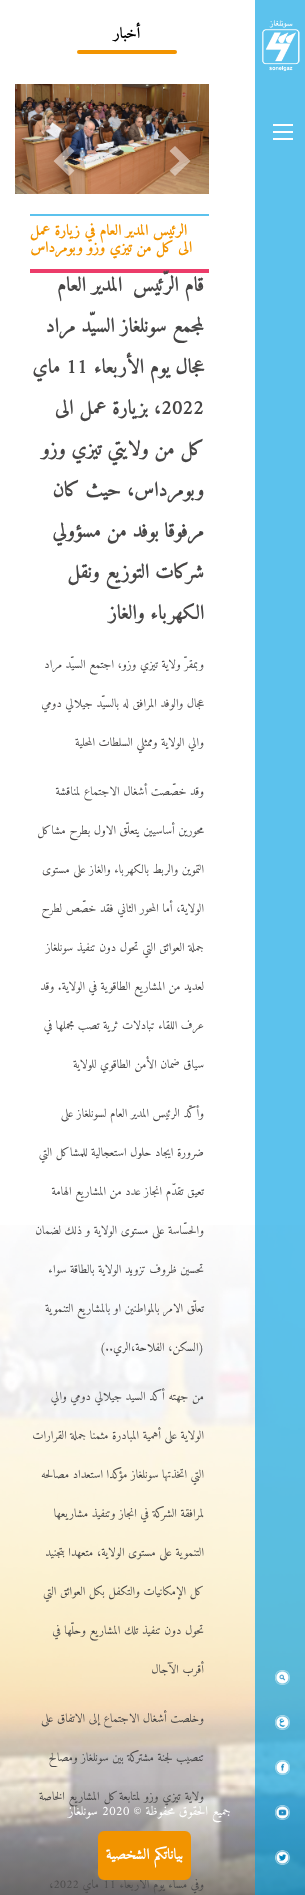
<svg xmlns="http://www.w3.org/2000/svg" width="305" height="1895">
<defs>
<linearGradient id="g1" gradientUnits="userSpaceOnUse" x1="153" y1="1782" x2="153" y2="1895"><stop offset="0" stop-color="#504f4f" stop-opacity="0"/><stop offset="1" stop-color="#504f4f" stop-opacity="0.7"/></linearGradient>
</defs>
<rect width="100%" height="100%" fill="#fff"/>
<image x="0" y="1225" width="305" height="670" href="media/7.png"/>
<text x="204" y="1800" word-spacing="0.5" style="font-family:Amiri;font-size:12px;direction:rtl;fill:#484747">ولاية تيزي وزو لمتابعة كل المشاريع الخاصة</text>
<text x="204" y="1888" style="font-family:Amiri;font-size:12px;direction:rtl;fill:#484747">وفي مساء يوم الأربعاء</text>
<text x="103" y="1888" style="font-family:Amiri;font-size:12px;fill:#484747">11</text>
<text x="99" y="1888" style="font-family:Amiri;font-size:12px;direction:rtl;fill:#484747">ماي</text>
<text x="49" y="1888" style="font-family:Amiri;font-size:12px;fill:#484747">،2022</text>
<rect y="1785" width="305" height="110" fill="url(#g1)"/>
<rect x="255" width="50" height="1895" fill="#009fe366"/>
<rect x="255" width="50" height="1895" fill="#009fe366"/>
<image x="262" y="20" width="38" height="51" href="media/1.png"/>
<rect x="273" y="124" width="20" height="2" fill="#fff"/>
<rect x="273" y="131" width="20" height="2" fill="#fff"/>
<rect x="273" y="138" width="20" height="2" fill="#fff"/>
<image x="275" y="1670" width="15" height="15" href="media/2.png"/>
<image x="275" y="1715" width="15" height="15" href="media/3.png"/>
<image x="275" y="1760" width="15" height="15" href="media/4.png"/>
<image x="275" y="1805" width="15" height="15" href="media/5.png"/>
<image x="275" y="1850" width="15" height="15" href="media/6.png"/>
<text x="140" y="38" style="font-family:Amiri;font-size:15px;font-weight:bold;direction:rtl;fill:#000">أخبار</text>
<rect x="77" y="50" width="100" height="4" rx="2" fill="#f29400"/>
<image x="15" y="84" width="194" height="110" href="media/8.png"/>
<path d="M190.5 161l-15.5 15l-5.5-5.5l10-9.5l-10-10l5.5-5z" fill="#ffffff80"/>
<path d="M74.5 151l-10 10l10 9.5l-5.5 5.5l-15.5-15l15.5-15z" fill="#ffffff80"/>
<rect x="30" y="214" width="179" height="2" fill="#5cc2ed"/>
<rect x="30" y="269" width="179" height="4" fill="#ec3c6a"/>
<text x="187" y="235" style="font-family:Amiri;font-size:15px;font-weight:bold;direction:rtl;fill:#f29400">الرئيس المدير العام في زيارة عمل</text>
<text x="192" y="252" style="font-family:Amiri;font-size:15px;font-weight:bold;direction:rtl;fill:#f29400">الى كل من تيزي وزو وبومرداس</text>
<text x="204" y="291" style="font-family:Amiri;font-size:20px;font-weight:bold;direction:rtl;fill:#484747">قام الرّئيس</text>
<text x="122" y="291" style="font-family:Amiri;font-size:20px;font-weight:bold;direction:rtl;fill:#484747">المدير العام</text>
<text x="204" y="332" style="font-family:Amiri;font-size:20px;font-weight:bold;direction:rtl;fill:#484747">لمجمع سونلغاز السيّد مراد</text>
<text x="204" y="373" style="font-family:Amiri;font-size:20px;font-weight:bold;direction:rtl;fill:#484747">عجال يوم الأربعاء</text>
<text x="66" y="373" style="font-family:Amiri;font-size:20px;font-weight:bold;fill:#484747">11</text>
<text x="60" y="373" style="font-family:Amiri;font-size:20px;font-weight:bold;direction:rtl;fill:#484747">ماي</text>
<text x="161" y="414" style="font-family:Amiri;font-size:20px;font-weight:bold;fill:#484747">2022</text>
<text x="161" y="414" style="font-family:Amiri;font-size:20px;font-weight:bold;direction:rtl;fill:#484747">، بزيارة عمل الى</text>
<text x="204" y="455" style="font-family:Amiri;font-size:20px;font-weight:bold;direction:rtl;fill:#484747">كل من ولايتي تيزي وزو</text>
<text x="204" y="496" style="font-family:Amiri;font-size:20px;font-weight:bold;direction:rtl;fill:#484747">وبومرداس، حيث كان</text>
<text x="204" y="537" style="font-family:Amiri;font-size:20px;font-weight:bold;direction:rtl;fill:#484747">مرفوقا بوفد من مسؤولي</text>
<text x="204" y="578" style="font-family:Amiri;font-size:20px;font-weight:bold;direction:rtl;fill:#484747">شركات التوزيع ونقل</text>
<text x="204" y="619" style="font-family:Amiri;font-size:20px;font-weight:bold;direction:rtl;fill:#484747">الكهرباء والغاز</text>
<text x="204" y="668" style="font-family:Amiri;font-size:12px;direction:rtl;fill:#484747">وبمقرّ ولاية تيزي وزو، اجتمع السيّد مراد</text>
<text x="204" y="707" style="font-family:Amiri;font-size:12px;direction:rtl;fill:#484747">عجال والوفد المرافق له بالسيّد جيلالي دومي</text>
<text x="204" y="746" style="font-family:Amiri;font-size:12px;direction:rtl;fill:#484747">والي الولاية وممثلي السلطات المحلية</text>
<text x="204" y="795" style="font-family:Amiri;font-size:12px;direction:rtl;fill:#484747">وقد خصّصت أشغال الاجتماع لمناقشة</text>
<text x="204" y="834" style="font-family:Amiri;font-size:12px;direction:rtl;fill:#484747">محورين أساسيين يتعلّق الاول بطرح مشاكل</text>
<text x="204" y="873" style="font-family:Amiri;font-size:12px;direction:rtl;fill:#484747">التموين والربط بالكهرباء والغاز على مستوى</text>
<text x="204" y="912" style="font-family:Amiri;font-size:12px;direction:rtl;fill:#484747">الولاية، أما المحور الثاني فقد خصّص لطرح</text>
<text x="204" y="951" style="font-family:Amiri;font-size:12px;direction:rtl;fill:#484747">جملة العوائق التي تحول دون تنفيذ سونلغاز</text>
<text x="204" y="990" style="font-family:Amiri;font-size:12px;direction:rtl;fill:#484747">لعديد من المشاريع الطاقوية في الولاية. وقد</text>
<text x="204" y="1029" style="font-family:Amiri;font-size:12px;direction:rtl;fill:#484747">عرف اللقاء تبادلات ثرية تصب مجملها في</text>
<text x="204" y="1068" style="font-family:Amiri;font-size:12px;direction:rtl;fill:#484747">سياق ضمان الأمن الطاقوي للولاية</text>
<text x="204" y="1117" style="font-family:Amiri;font-size:12px;direction:rtl;fill:#484747">وأكّد الرئيس المدير العام لسونلغاز على</text>
<text x="204" y="1156" style="font-family:Amiri;font-size:12px;direction:rtl;fill:#484747">ضرورة ايجاد حلول استعجالية للمشاكل التي</text>
<text x="204" y="1195" style="font-family:Amiri;font-size:12px;direction:rtl;fill:#484747">تعيق تقدّم انجاز عدد من المشاريع الهامة</text>
<text x="204" y="1234" style="font-family:Amiri;font-size:12px;direction:rtl;fill:#484747">والحسّاسة على مستوى الولاية و ذلك لضمان</text>
<text x="204" y="1273" style="font-family:Amiri;font-size:12px;direction:rtl;fill:#484747">تحسين ظروف تزويد الولاية بالطاقة سواء</text>
<text x="204" y="1312" style="font-family:Amiri;font-size:12px;direction:rtl;fill:#484747">تعلّق الامر بالمواطنين او بالمشاريع التنموية</text>
<text x="204" y="1351" style="font-family:Amiri;font-size:12px;direction:rtl;fill:#484747">(السكن، الفلاحة،الري..)</text>
<text x="204" y="1400" style="font-family:Amiri;font-size:12px;direction:rtl;fill:#484747">من جهته أكد السيد جيلالي دومي والي</text>
<text x="204" y="1439" style="font-family:Amiri;font-size:12px;direction:rtl;fill:#484747">الولاية على أهمية المبادرة مثمنا جملة القرارات</text>
<text x="204" y="1478" style="font-family:Amiri;font-size:12px;direction:rtl;fill:#484747">التي اتخذتها سونلغاز مؤكدا استعداد مصالحه</text>
<text x="204" y="1517" style="font-family:Amiri;font-size:12px;direction:rtl;fill:#484747">لمرافقة الشركة في انجاز وتنفيذ مشاريعها</text>
<text x="204" y="1556" style="font-family:Amiri;font-size:12px;direction:rtl;fill:#484747">التنموية على مستوى الولاية، متعهدا بتجنيد</text>
<text x="204" y="1595" style="font-family:Amiri;font-size:12px;direction:rtl;fill:#484747">كل الإمكانيات والتكفل بكل العوائق التي</text>
<text x="204" y="1634" style="font-family:Amiri;font-size:12px;direction:rtl;fill:#484747">تحول دون تنفيذ تلك المشاريع وحلّها في</text>
<text x="204" y="1673" style="font-family:Amiri;font-size:12px;direction:rtl;fill:#484747">أقرب الآجال</text>
<text x="204" y="1722" style="font-family:Amiri;font-size:12px;direction:rtl;fill:#484747">وخلصت أشغال الاجتماع إلى الاتفاق على</text>
<text x="204" y="1761" style="font-family:Amiri;font-size:12px;direction:rtl;fill:#484747">تنصيب لجنة مشتركة بين سونلغاز ومصالح</text>
<text x="231" y="1815" style="font-family:Amiri;font-size:13px;direction:rtl;fill:#fff">جميع الحقوق محفوظة ©</text>
<text x="102" y="1815" style="font-family:Amiri;font-size:13px;fill:#fff">2020</text>
<text x="98" y="1815" style="font-family:Amiri;font-size:13px;direction:rtl;fill:#fff">سونلغاز</text>
<rect x="99" y="1832" width="91" height="47" rx="5" fill="#f29400" stroke="#f29400" stroke-width="2"/>
<text x="183" y="1859" style="font-family:Amiri;font-size:15px;font-weight:bold;direction:rtl;fill:#fff">بياناتكم الشخصية</text>
</svg>
